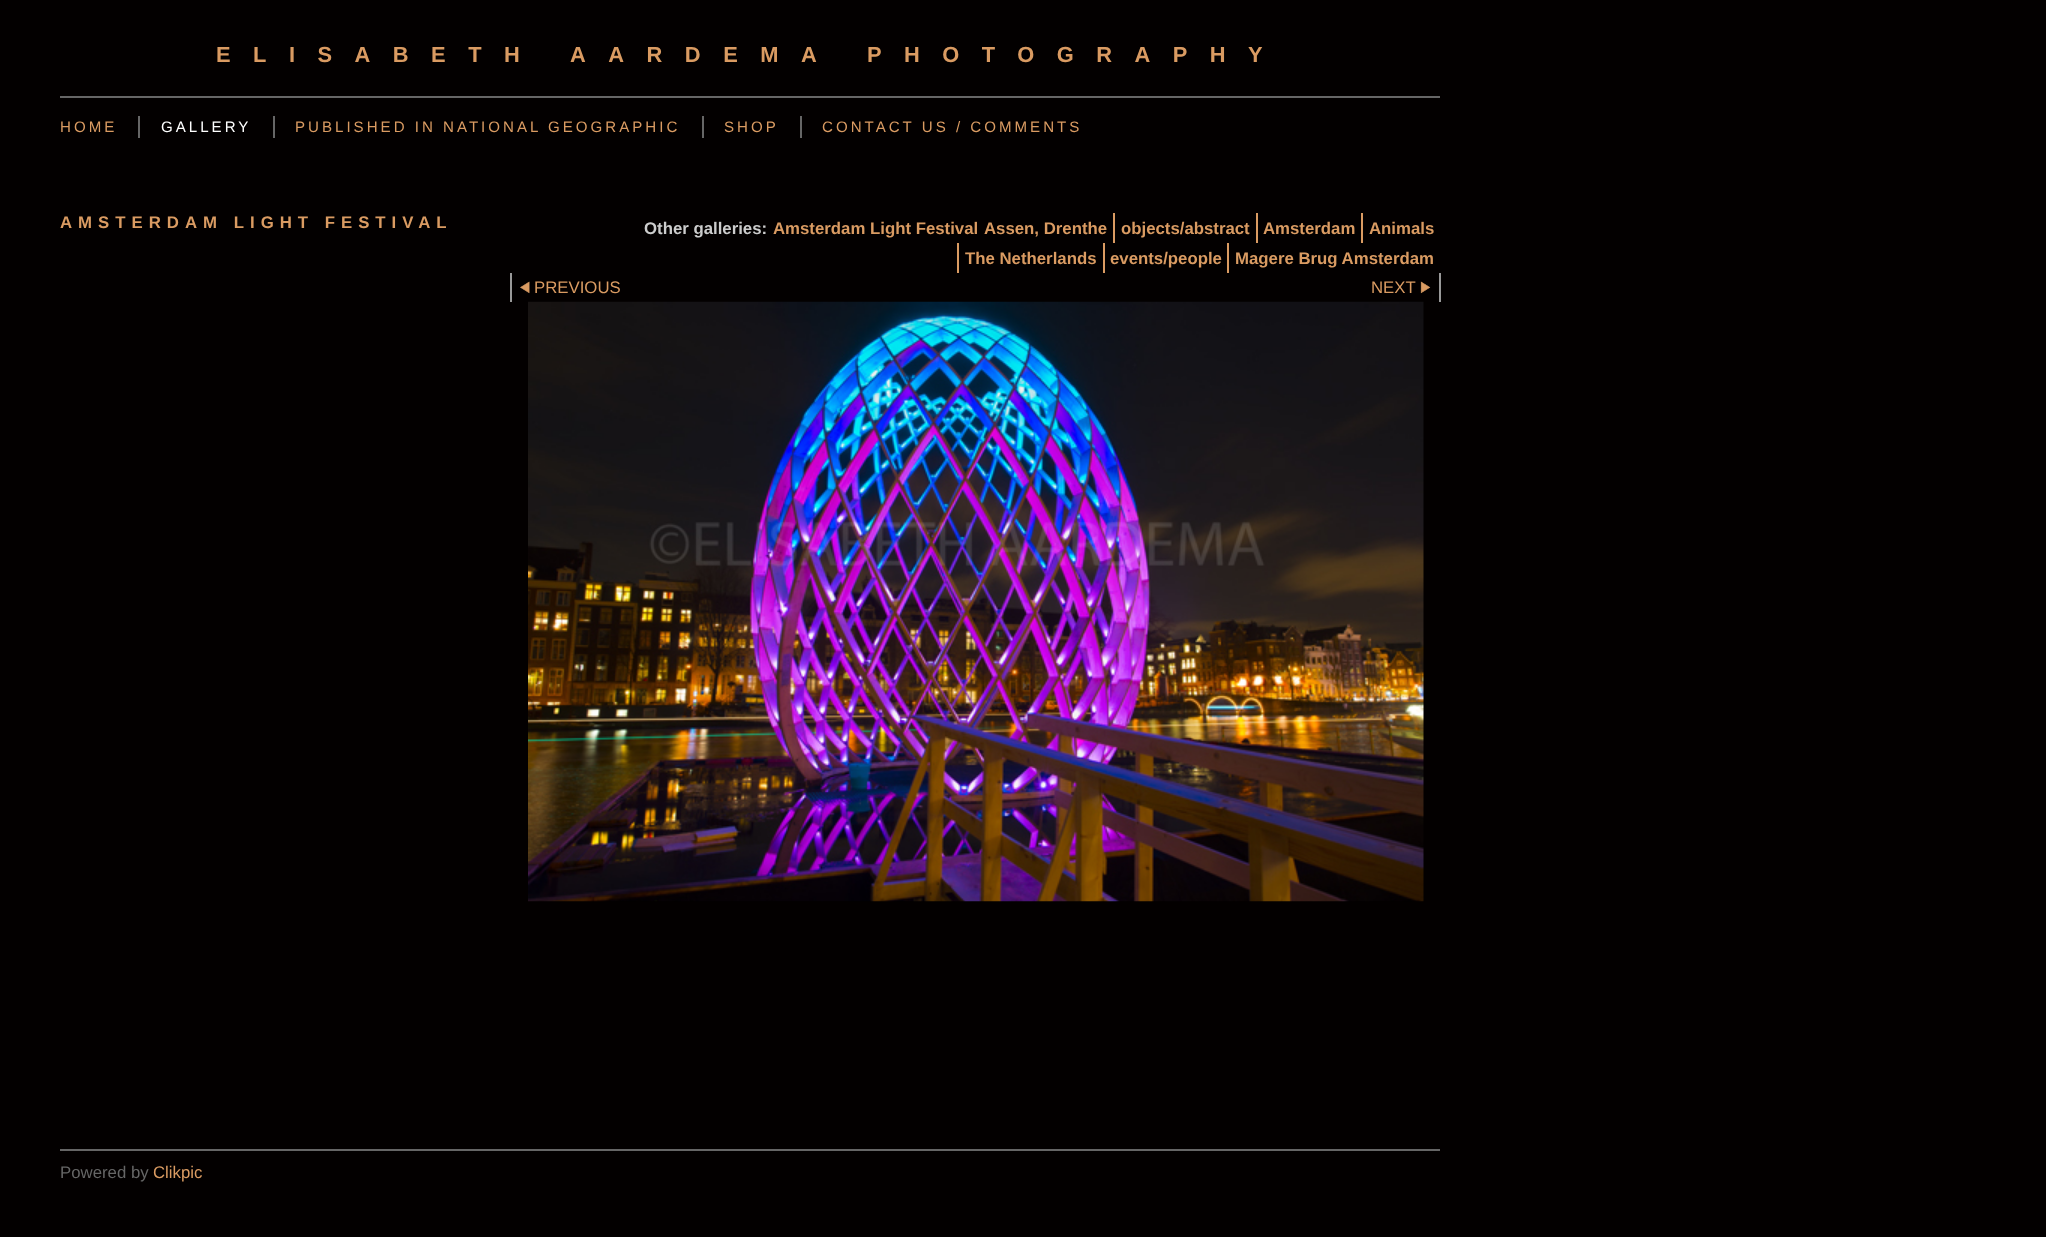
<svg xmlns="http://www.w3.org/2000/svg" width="2046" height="1237">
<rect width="100%" height="100%" fill="#030000"/>
<rect x="60" y="96" width="1380" height="2" fill="#666"/>
<text x="216" y="62" style="font-family:Liberation Sans;font-size:21.85px;font-weight:bold;letter-spacing:22.5px;fill:#da9b62">ELISABETH AARDEMA PHOTOGRAPHY</text>
<text x="60" y="132" style="font-family:Liberation Sans;font-size:15.1px;letter-spacing:3px;fill:#da9b62">HOME</text>
<rect x="138" y="116" width="2" height="22" fill="#666"/>
<text x="161" y="132" style="font-family:Liberation Sans;font-size:15.1px;letter-spacing:3px;fill:#fff">GALLERY</text>
<rect x="273" y="116" width="2" height="22" fill="#666"/>
<text x="295" y="132" style="font-family:Liberation Sans;font-size:15.1px;letter-spacing:3px;fill:#da9b62">PUBLISHED IN NATIONAL GEOGRAPHIC</text>
<rect x="702" y="116" width="2" height="22" fill="#666"/>
<text x="724" y="132" style="font-family:Liberation Sans;font-size:15.1px;letter-spacing:3px;fill:#da9b62">SHOP</text>
<rect x="800" y="116" width="2" height="22" fill="#666"/>
<text x="822" y="132" style="font-family:Liberation Sans;font-size:15.1px;letter-spacing:3px;fill:#da9b62">CONTACT US / COMMENTS</text>
<text x="60" y="228" style="font-family:Liberation Sans;font-size:16.8px;font-weight:bold;letter-spacing:6px;fill:#da9b62">AMSTERDAM LIGHT FESTIVAL</text>
<text x="644" y="234" style="font-family:Liberation Sans;font-size:16.8px;font-weight:bold;fill:#ccc">Other galleries:</text>
<text x="773" y="234" style="font-family:Liberation Sans;font-size:16.8px;font-weight:bold;fill:#da9b62">Amsterdam Light Festival</text>
<text x="984" y="234" style="font-family:Liberation Sans;font-size:16.8px;font-weight:bold;fill:#da9b62">Assen, Drenthe</text>
<rect x="1113" y="213" width="2" height="30" fill="#da9b62"/>
<text x="1121" y="234" style="font-family:Liberation Sans;font-size:16.8px;font-weight:bold;fill:#da9b62">objects/abstract</text>
<rect x="1256" y="213" width="2" height="30" fill="#da9b62"/>
<text x="1263" y="234" style="font-family:Liberation Sans;font-size:16.8px;font-weight:bold;fill:#da9b62">Amsterdam</text>
<rect x="1361" y="213" width="2" height="30" fill="#da9b62"/>
<text x="1369" y="234" style="font-family:Liberation Sans;font-size:16.8px;font-weight:bold;fill:#da9b62">Animals</text>
<rect x="957" y="243" width="2" height="30" fill="#da9b62"/>
<text x="965" y="264" style="font-family:Liberation Sans;font-size:16.8px;font-weight:bold;fill:#da9b62">The Netherlands</text>
<rect x="1103" y="243" width="2" height="30" fill="#da9b62"/>
<text x="1110" y="264" style="font-family:Liberation Sans;font-size:16.8px;font-weight:bold;fill:#da9b62">events/people</text>
<rect x="1227" y="243" width="2" height="30" fill="#da9b62"/>
<text x="1235" y="264" style="font-family:Liberation Sans;font-size:16.8px;font-weight:bold;fill:#da9b62">Magere Brug Amsterdam</text>
<rect x="510" y="273" width="2" height="29" fill="#999"/>
<image x="520" y="281" width="10" height="13" href="media/1.png"/>
<text x="534" y="293" style="font-family:Liberation Sans;font-size:16.8px;fill:#da9b62">PREVIOUS</text>
<rect x="1439" y="273" width="2" height="29" fill="#999"/>
<text x="1371" y="293" style="font-family:Liberation Sans;font-size:16.8px;fill:#da9b62">NEXT</text>
<image x="1420" y="281" width="11" height="13" href="media/2.png"/>
<image x="528" y="301" width="896" height="601" href="media/3.png"/>
<rect x="60" y="1149" width="1380" height="2" fill="#666"/>
<text x="60" y="1178" style="font-family:Liberation Sans;font-size:16.8px;fill:#666">Powered by</text>
<text x="153" y="1178" style="font-family:Liberation Sans;font-size:16.8px;fill:#da9b62">Clikpic</text>
</svg>
